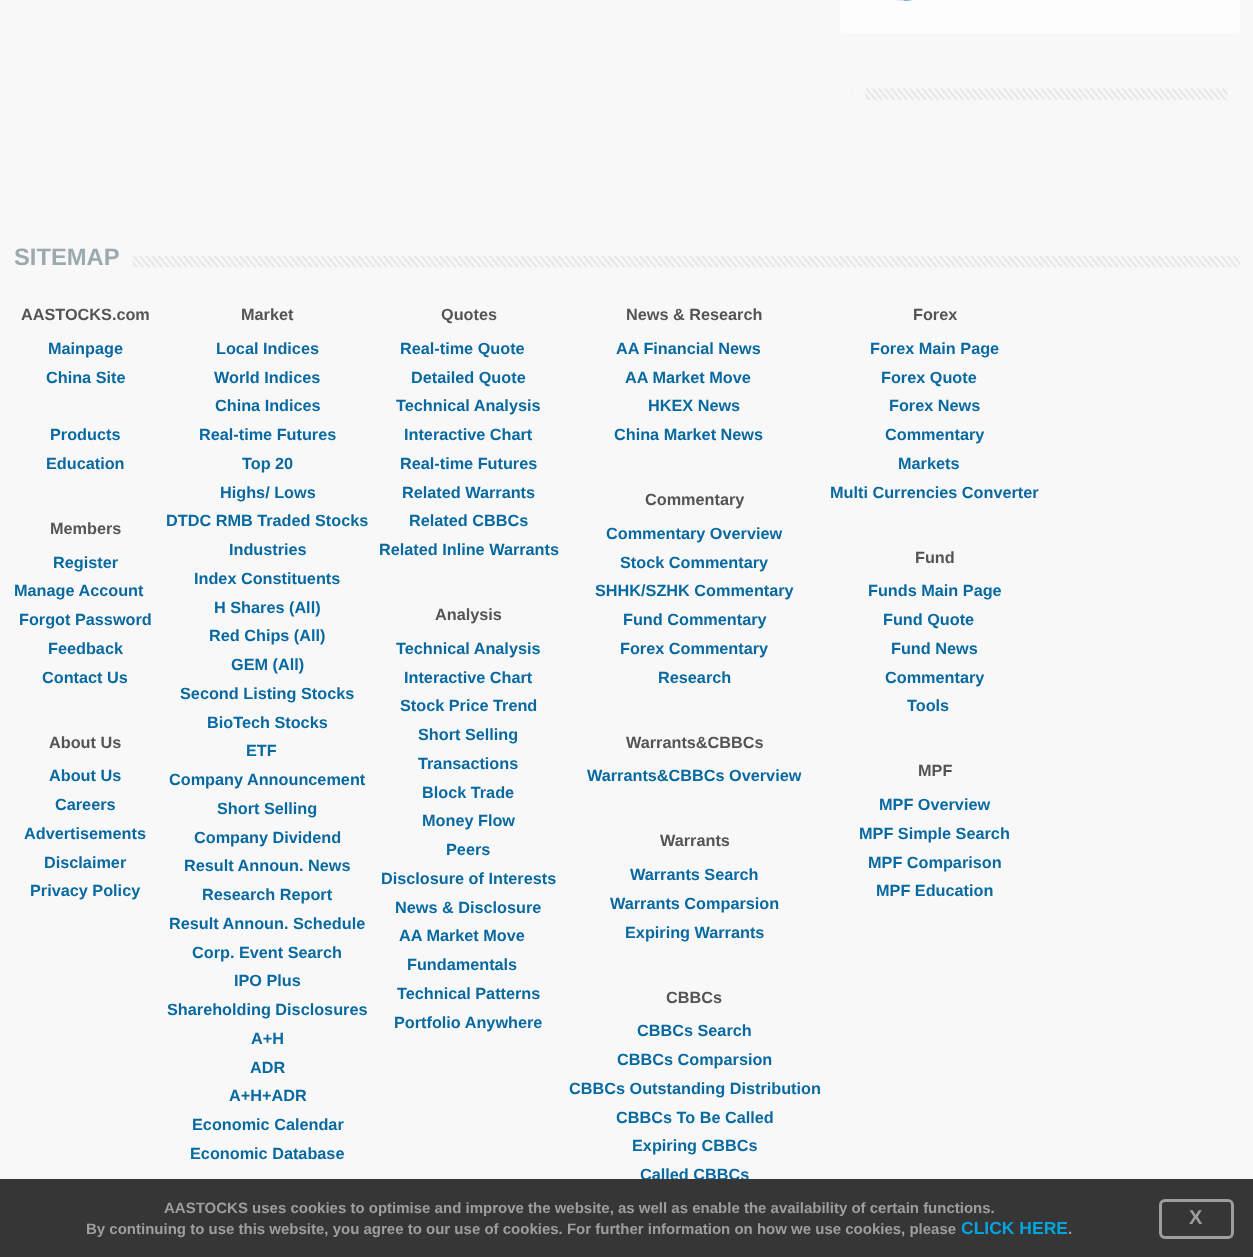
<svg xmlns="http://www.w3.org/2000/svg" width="1253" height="1257">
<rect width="100%" height="100%" fill="#f8f8f8"/>
<rect x="840" y="-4" width="400" height="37" rx="4" fill="#fdfdfd"/>
<image x="894" y="0" width="19" height="1" href="media/1.png"/>
<image x="852" y="88" width="376" height="12" href="media/2.png"/>
<rect x="853" y="88" width="12" height="12" fill="#f8f8f8"/>
<text x="14" y="265" style="font-family:Liberation Sans;font-size:23.75px;font-weight:bold;fill:#9caaaf">SITEMAP</text>
<image x="132" y="256" width="1108" height="12" href="media/3.png"/>
<text x="21" y="320" style="font-family:Liberation Sans;font-size:16.25px;font-weight:bold;fill:#545454">AASTOCKS.com</text>
<text x="48" y="354" style="font-family:Liberation Sans;font-size:16.25px;font-weight:bold;fill:#0869a1">Mainpage</text>
<text x="46" y="383" style="font-family:Liberation Sans;font-size:16.25px;font-weight:bold;fill:#0869a1">China Site</text>
<text x="50" y="440" style="font-family:Liberation Sans;font-size:16.25px;font-weight:bold;fill:#0869a1">Products</text>
<text x="46" y="469" style="font-family:Liberation Sans;font-size:16.25px;font-weight:bold;fill:#0869a1">Education</text>
<text x="50" y="534" style="font-family:Liberation Sans;font-size:16.25px;font-weight:bold;fill:#545454">Members</text>
<text x="53" y="568" style="font-family:Liberation Sans;font-size:16.25px;font-weight:bold;fill:#0869a1">Register</text>
<text x="14" y="596" style="font-family:Liberation Sans;font-size:16.25px;font-weight:bold;fill:#0869a1">Manage Account</text>
<text x="19" y="625" style="font-family:Liberation Sans;font-size:16.25px;font-weight:bold;fill:#0869a1">Forgot Password</text>
<text x="48" y="654" style="font-family:Liberation Sans;font-size:16.25px;font-weight:bold;fill:#0869a1">Feedback</text>
<text x="42" y="683" style="font-family:Liberation Sans;font-size:16.25px;font-weight:bold;fill:#0869a1">Contact Us</text>
<text x="49" y="748" style="font-family:Liberation Sans;font-size:16.25px;font-weight:bold;fill:#545454">About Us</text>
<text x="49" y="781" style="font-family:Liberation Sans;font-size:16.25px;font-weight:bold;fill:#0869a1">About Us</text>
<text x="55" y="810" style="font-family:Liberation Sans;font-size:16.25px;font-weight:bold;fill:#0869a1">Careers</text>
<text x="24" y="839" style="font-family:Liberation Sans;font-size:16.25px;font-weight:bold;fill:#0869a1">Advertisements</text>
<text x="44" y="868" style="font-family:Liberation Sans;font-size:16.25px;font-weight:bold;fill:#0869a1">Disclaimer</text>
<text x="30" y="896" style="font-family:Liberation Sans;font-size:16.25px;font-weight:bold;fill:#0869a1">Privacy Policy</text>
<text x="241" y="320" style="font-family:Liberation Sans;font-size:16.25px;font-weight:bold;fill:#545454">Market</text>
<text x="216" y="354" style="font-family:Liberation Sans;font-size:16.25px;font-weight:bold;fill:#0869a1">Local Indices</text>
<text x="214" y="383" style="font-family:Liberation Sans;font-size:16.25px;font-weight:bold;fill:#0869a1">World Indices</text>
<text x="215" y="411" style="font-family:Liberation Sans;font-size:16.25px;font-weight:bold;fill:#0869a1">China Indices</text>
<text x="199" y="440" style="font-family:Liberation Sans;font-size:16.25px;font-weight:bold;fill:#0869a1">Real-time Futures</text>
<text x="242" y="469" style="font-family:Liberation Sans;font-size:16.25px;font-weight:bold;fill:#0869a1">Top 20</text>
<text x="220" y="498" style="font-family:Liberation Sans;font-size:16.25px;font-weight:bold;fill:#0869a1">Highs/ Lows</text>
<text x="166" y="526" style="font-family:Liberation Sans;font-size:16.25px;font-weight:bold;fill:#0869a1">DTDC RMB Traded Stocks</text>
<text x="229" y="555" style="font-family:Liberation Sans;font-size:16.25px;font-weight:bold;fill:#0869a1">Industries</text>
<text x="194" y="584" style="font-family:Liberation Sans;font-size:16.25px;font-weight:bold;fill:#0869a1">Index Constituents</text>
<text x="214" y="613" style="font-family:Liberation Sans;font-size:16.25px;font-weight:bold;fill:#0869a1">H Shares (All)</text>
<text x="209" y="641" style="font-family:Liberation Sans;font-size:16.25px;font-weight:bold;fill:#0869a1">Red Chips (All)</text>
<text x="231" y="670" style="font-family:Liberation Sans;font-size:16.25px;font-weight:bold;fill:#0869a1">GEM (All)</text>
<text x="180" y="699" style="font-family:Liberation Sans;font-size:16.25px;font-weight:bold;fill:#0869a1">Second Listing Stocks</text>
<text x="207" y="728" style="font-family:Liberation Sans;font-size:16.25px;font-weight:bold;fill:#0869a1">BioTech Stocks</text>
<text x="246" y="756" style="font-family:Liberation Sans;font-size:16.25px;font-weight:bold;fill:#0869a1">ETF</text>
<text x="169" y="785" style="font-family:Liberation Sans;font-size:16.25px;font-weight:bold;fill:#0869a1">Company Announcement</text>
<text x="217" y="814" style="font-family:Liberation Sans;font-size:16.25px;font-weight:bold;fill:#0869a1">Short Selling</text>
<text x="194" y="843" style="font-family:Liberation Sans;font-size:16.25px;font-weight:bold;fill:#0869a1">Company Dividend</text>
<text x="184" y="871" style="font-family:Liberation Sans;font-size:16.25px;font-weight:bold;fill:#0869a1">Result Announ. News</text>
<text x="202" y="900" style="font-family:Liberation Sans;font-size:16.25px;font-weight:bold;fill:#0869a1">Research Report</text>
<text x="169" y="929" style="font-family:Liberation Sans;font-size:16.25px;font-weight:bold;fill:#0869a1">Result Announ. Schedule</text>
<text x="192" y="958" style="font-family:Liberation Sans;font-size:16.25px;font-weight:bold;fill:#0869a1">Corp. Event Search</text>
<text x="234" y="986" style="font-family:Liberation Sans;font-size:16.25px;font-weight:bold;fill:#0869a1">IPO Plus</text>
<text x="167" y="1015" style="font-family:Liberation Sans;font-size:16.25px;font-weight:bold;fill:#0869a1">Shareholding Disclosures</text>
<text x="251" y="1044" style="font-family:Liberation Sans;font-size:16.25px;font-weight:bold;fill:#0869a1">A+H</text>
<text x="250" y="1073" style="font-family:Liberation Sans;font-size:16.25px;font-weight:bold;fill:#0869a1">ADR</text>
<text x="229" y="1101" style="font-family:Liberation Sans;font-size:16.25px;font-weight:bold;fill:#0869a1">A+H+ADR</text>
<text x="192" y="1130" style="font-family:Liberation Sans;font-size:16.25px;font-weight:bold;fill:#0869a1">Economic Calendar</text>
<text x="190" y="1159" style="font-family:Liberation Sans;font-size:16.25px;font-weight:bold;fill:#0869a1">Economic Database</text>
<text x="441" y="320" style="font-family:Liberation Sans;font-size:16.25px;font-weight:bold;fill:#545454">Quotes</text>
<text x="400" y="354" style="font-family:Liberation Sans;font-size:16.25px;font-weight:bold;fill:#0869a1">Real-time Quote</text>
<text x="411" y="383" style="font-family:Liberation Sans;font-size:16.25px;font-weight:bold;fill:#0869a1">Detailed Quote</text>
<text x="396" y="411" style="font-family:Liberation Sans;font-size:16.25px;font-weight:bold;fill:#0869a1">Technical Analysis</text>
<text x="404" y="440" style="font-family:Liberation Sans;font-size:16.25px;font-weight:bold;fill:#0869a1">Interactive Chart</text>
<text x="400" y="469" style="font-family:Liberation Sans;font-size:16.25px;font-weight:bold;fill:#0869a1">Real-time Futures</text>
<text x="402" y="498" style="font-family:Liberation Sans;font-size:16.25px;font-weight:bold;fill:#0869a1">Related Warrants</text>
<text x="409" y="526" style="font-family:Liberation Sans;font-size:16.25px;font-weight:bold;fill:#0869a1">Related CBBCs</text>
<text x="379" y="555" style="font-family:Liberation Sans;font-size:16.25px;font-weight:bold;fill:#0869a1">Related Inline Warrants</text>
<text x="435" y="620" style="font-family:Liberation Sans;font-size:16.25px;font-weight:bold;fill:#545454">Analysis</text>
<text x="396" y="654" style="font-family:Liberation Sans;font-size:16.25px;font-weight:bold;fill:#0869a1">Technical Analysis</text>
<text x="404" y="683" style="font-family:Liberation Sans;font-size:16.25px;font-weight:bold;fill:#0869a1">Interactive Chart</text>
<text x="400" y="711" style="font-family:Liberation Sans;font-size:16.25px;font-weight:bold;fill:#0869a1">Stock Price Trend</text>
<text x="418" y="740" style="font-family:Liberation Sans;font-size:16.25px;font-weight:bold;fill:#0869a1">Short Selling</text>
<text x="418" y="769" style="font-family:Liberation Sans;font-size:16.25px;font-weight:bold;fill:#0869a1">Transactions</text>
<text x="422" y="798" style="font-family:Liberation Sans;font-size:16.25px;font-weight:bold;fill:#0869a1">Block Trade</text>
<text x="422" y="826" style="font-family:Liberation Sans;font-size:16.25px;font-weight:bold;fill:#0869a1">Money Flow</text>
<text x="446" y="855" style="font-family:Liberation Sans;font-size:16.25px;font-weight:bold;fill:#0869a1">Peers</text>
<text x="381" y="884" style="font-family:Liberation Sans;font-size:16.25px;font-weight:bold;fill:#0869a1">Disclosure of Interests</text>
<text x="395" y="913" style="font-family:Liberation Sans;font-size:16.25px;font-weight:bold;fill:#0869a1">News &amp; Disclosure</text>
<text x="399" y="941" style="font-family:Liberation Sans;font-size:16.25px;font-weight:bold;fill:#0869a1">AA Market Move</text>
<text x="407" y="970" style="font-family:Liberation Sans;font-size:16.25px;font-weight:bold;fill:#0869a1">Fundamentals</text>
<text x="397" y="999" style="font-family:Liberation Sans;font-size:16.25px;font-weight:bold;fill:#0869a1">Technical Patterns</text>
<text x="394" y="1028" style="font-family:Liberation Sans;font-size:16.25px;font-weight:bold;fill:#0869a1">Portfolio Anywhere</text>
<text x="626" y="320" style="font-family:Liberation Sans;font-size:16.25px;font-weight:bold;fill:#545454">News &amp; Research</text>
<text x="616" y="354" style="font-family:Liberation Sans;font-size:16.25px;font-weight:bold;fill:#0869a1">AA Financial News</text>
<text x="625" y="383" style="font-family:Liberation Sans;font-size:16.25px;font-weight:bold;fill:#0869a1">AA Market Move</text>
<text x="648" y="411" style="font-family:Liberation Sans;font-size:16.25px;font-weight:bold;fill:#0869a1">HKEX News</text>
<text x="614" y="440" style="font-family:Liberation Sans;font-size:16.25px;font-weight:bold;fill:#0869a1">China Market News</text>
<text x="645" y="505" style="font-family:Liberation Sans;font-size:16.25px;font-weight:bold;fill:#545454">Commentary</text>
<text x="606" y="539" style="font-family:Liberation Sans;font-size:16.25px;font-weight:bold;fill:#0869a1">Commentary Overview</text>
<text x="620" y="568" style="font-family:Liberation Sans;font-size:16.25px;font-weight:bold;fill:#0869a1">Stock Commentary</text>
<text x="595" y="596" style="font-family:Liberation Sans;font-size:16.25px;font-weight:bold;fill:#0869a1">SHHK/SZHK Commentary</text>
<text x="623" y="625" style="font-family:Liberation Sans;font-size:16.25px;font-weight:bold;fill:#0869a1">Fund Commentary</text>
<text x="620" y="654" style="font-family:Liberation Sans;font-size:16.25px;font-weight:bold;fill:#0869a1">Forex Commentary</text>
<text x="658" y="683" style="font-family:Liberation Sans;font-size:16.25px;font-weight:bold;fill:#0869a1">Research</text>
<text x="626" y="748" style="font-family:Liberation Sans;font-size:16.25px;font-weight:bold;fill:#545454">Warrants&amp;CBBCs</text>
<text x="587" y="781" style="font-family:Liberation Sans;font-size:16.25px;font-weight:bold;fill:#0869a1">Warrants&amp;CBBCs Overview</text>
<text x="660" y="846" style="font-family:Liberation Sans;font-size:16.25px;font-weight:bold;fill:#545454">Warrants</text>
<text x="630" y="880" style="font-family:Liberation Sans;font-size:16.25px;font-weight:bold;fill:#0869a1">Warrants Search</text>
<text x="610" y="909" style="font-family:Liberation Sans;font-size:16.25px;font-weight:bold;fill:#0869a1">Warrants Comparsion</text>
<text x="625" y="938" style="font-family:Liberation Sans;font-size:16.25px;font-weight:bold;fill:#0869a1">Expiring Warrants</text>
<text x="666" y="1003" style="font-family:Liberation Sans;font-size:16.25px;font-weight:bold;fill:#545454">CBBCs</text>
<text x="637" y="1036" style="font-family:Liberation Sans;font-size:16.25px;font-weight:bold;fill:#0869a1">CBBCs Search</text>
<text x="617" y="1065" style="font-family:Liberation Sans;font-size:16.25px;font-weight:bold;fill:#0869a1">CBBCs Comparsion</text>
<text x="569" y="1094" style="font-family:Liberation Sans;font-size:16.25px;font-weight:bold;fill:#0869a1">CBBCs Outstanding Distribution</text>
<text x="616" y="1123" style="font-family:Liberation Sans;font-size:16.25px;font-weight:bold;fill:#0869a1">CBBCs To Be Called</text>
<text x="632" y="1151" style="font-family:Liberation Sans;font-size:16.25px;font-weight:bold;fill:#0869a1">Expiring CBBCs</text>
<text x="640" y="1180" style="font-family:Liberation Sans;font-size:16.25px;font-weight:bold;fill:#0869a1">Called CBBCs</text>
<text x="913" y="320" style="font-family:Liberation Sans;font-size:16.25px;font-weight:bold;fill:#545454">Forex</text>
<text x="870" y="354" style="font-family:Liberation Sans;font-size:16.25px;font-weight:bold;fill:#0869a1">Forex Main Page</text>
<text x="881" y="383" style="font-family:Liberation Sans;font-size:16.25px;font-weight:bold;fill:#0869a1">Forex Quote</text>
<text x="889" y="411" style="font-family:Liberation Sans;font-size:16.25px;font-weight:bold;fill:#0869a1">Forex News</text>
<text x="885" y="440" style="font-family:Liberation Sans;font-size:16.25px;font-weight:bold;fill:#0869a1">Commentary</text>
<text x="898" y="469" style="font-family:Liberation Sans;font-size:16.25px;font-weight:bold;fill:#0869a1">Markets</text>
<text x="830" y="498" style="font-family:Liberation Sans;font-size:16.25px;font-weight:bold;fill:#0869a1">Multi Currencies Converter</text>
<text x="915" y="563" style="font-family:Liberation Sans;font-size:16.25px;font-weight:bold;fill:#545454">Fund</text>
<text x="868" y="596" style="font-family:Liberation Sans;font-size:16.25px;font-weight:bold;fill:#0869a1">Funds Main Page</text>
<text x="883" y="625" style="font-family:Liberation Sans;font-size:16.25px;font-weight:bold;fill:#0869a1">Fund Quote</text>
<text x="891" y="654" style="font-family:Liberation Sans;font-size:16.25px;font-weight:bold;fill:#0869a1">Fund News</text>
<text x="885" y="683" style="font-family:Liberation Sans;font-size:16.25px;font-weight:bold;fill:#0869a1">Commentary</text>
<text x="907" y="711" style="font-family:Liberation Sans;font-size:16.25px;font-weight:bold;fill:#0869a1">Tools</text>
<text x="918" y="776" style="font-family:Liberation Sans;font-size:16.25px;font-weight:bold;fill:#545454">MPF</text>
<text x="879" y="810" style="font-family:Liberation Sans;font-size:16.25px;font-weight:bold;fill:#0869a1">MPF Overview</text>
<text x="859" y="839" style="font-family:Liberation Sans;font-size:16.25px;font-weight:bold;fill:#0869a1">MPF Simple Search</text>
<text x="868" y="868" style="font-family:Liberation Sans;font-size:16.25px;font-weight:bold;fill:#0869a1">MPF Comparison</text>
<text x="876" y="896" style="font-family:Liberation Sans;font-size:16.25px;font-weight:bold;fill:#0869a1">MPF Education</text>
<rect y="1179" width="1253" height="78" fill="#363636"/>
<text x="164" y="1213" style="font-family:Liberation Sans;font-size:15px;font-weight:bold;fill:#9e9e9e">AASTOCKS uses cookies to optimise and improve the website, as well as enable the availability of certain functions.</text>
<text x="86" y="1234" style="font-family:Liberation Sans;font-size:15px;font-weight:bold;fill:#9e9e9e">By continuing to use this website, you agree to our use of cookies. For further information on how we use cookies, please</text>
<text x="961" y="1234" style="font-family:Liberation Sans;font-size:17.5px;font-weight:bold;fill:#00a5df">CLICK HERE</text>
<text x="1068" y="1234" style="font-family:Liberation Sans;font-size:15px;font-weight:bold;fill:#9e9e9e">.</text>
<rect x="1160.5" y="1200.5" width="72" height="37" rx="4.5" fill="none" stroke="#9e9e9e" stroke-width="3"/>
<text x="1189" y="1224" style="font-family:Liberation Sans;font-size:20px;font-weight:bold;fill:#9e9e9e">X</text>
</svg>
